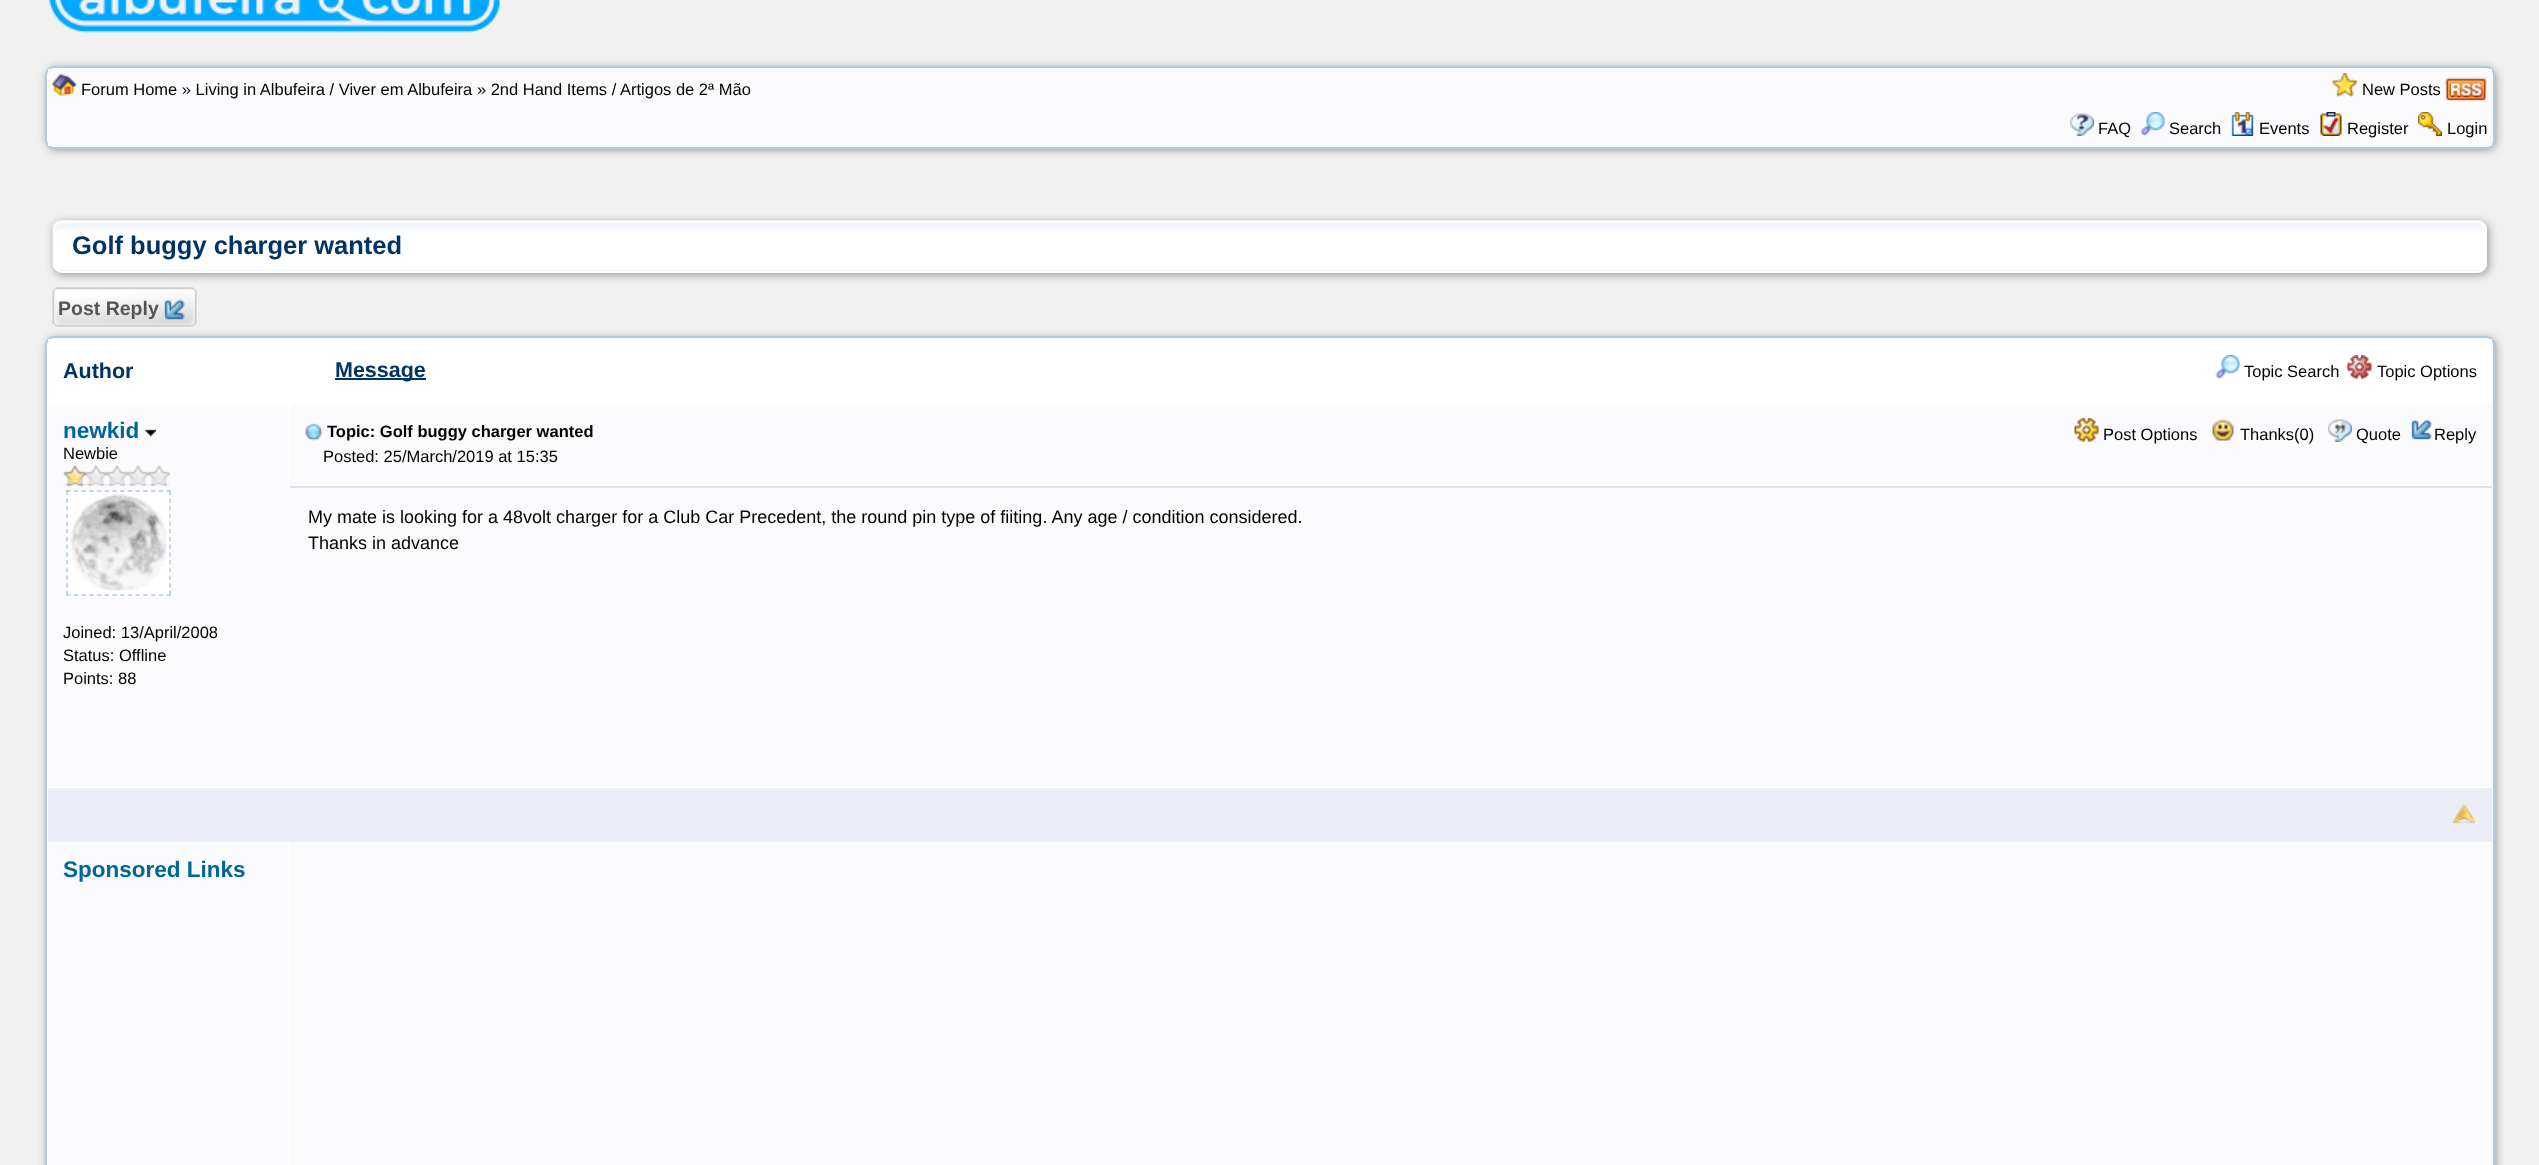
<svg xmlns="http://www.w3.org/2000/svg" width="2539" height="1165">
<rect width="100%" height="100%" fill="#f1f1f1"/>
<image x="49" y="0" width="451" height="33" href="media/1.png"/>
<rect x="47" y="68" width="2449" height="82" rx="9" fill="#999" filter="blur(4.5px)"/>
<rect x="46" y="67" width="2448" height="81" rx="8" fill="#fff" stroke="#b1cadc" stroke-width="2"/>
<rect x="48" y="69" width="2444" height="38" fill="#fbfbfd"/>
<image x="52" y="74" width="25" height="22" href="media/2.png"/>
<text x="81" y="95" style="font-family:Liberation Sans;font-size:16.5px;fill:#000">Forum Home » Living in Albufeira / Viver em Albufeira » 2nd Hand Items / Artigos de 2ª Mão</text>
<image x="2332" y="73" width="25" height="24" href="media/3.png"/>
<text x="2362" y="95" style="font-family:Liberation Sans;font-size:16.5px;fill:#000">New Posts</text>
<image x="2445" y="77" width="42" height="24" href="media/4.png"/>
<rect x="48" y="108" width="2444" height="38" fill="#fbfbfd"/>
<image x="2070" y="113" width="24" height="23" href="media/5.png"/>
<text x="2098" y="134" style="font-family:Liberation Sans;font-size:16.5px;fill:#000">FAQ</text>
<image x="2140" y="112" width="25" height="24" href="media/6.png"/>
<text x="2169" y="134" style="font-family:Liberation Sans;font-size:16.5px;fill:#000">Search</text>
<image x="2231" y="112" width="23" height="24" href="media/7.png"/>
<text x="2259" y="134" style="font-family:Liberation Sans;font-size:16.5px;fill:#000">Events</text>
<image x="2320" y="112" width="22" height="24" href="media/8.png"/>
<text x="2347" y="134" style="font-family:Liberation Sans;font-size:16.5px;fill:#000">Register</text>
<image x="2418" y="112" width="24" height="24" href="media/9.png"/>
<text x="2447" y="134" style="font-family:Liberation Sans;font-size:16.5px;fill:#000">Login</text>
<rect x="54" y="222" width="2435" height="53" rx="9" fill="#999" filter="blur(4.5px)"/>
<image x="52" y="220" width="2435" height="51" href="media/10.png"/>
<rect x="54" y="222" width="2432" height="50" rx="8" fill="none" stroke="#fff" stroke-width="2"/>
<text x="72" y="254" style="font-family:Liberation Sans;font-size:25.5px;font-weight:bold;fill:#036">Golf buggy charger wanted</text>
<rect x="47" y="338" width="2449" height="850" rx="9" fill="#999" filter="blur(4.5px)"/>
<image x="52" y="287" width="145" height="40" href="media/11.png"/>
<text x="58" y="315" style="font-family:Liberation Sans;font-size:19.5px;font-weight:bold;fill:#555">Post Reply</text>
<image x="164" y="299" width="21" height="21" href="media/12.png"/>
<rect x="46" y="337" width="2448" height="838" rx="8" fill="#fff" stroke="#b1cadc" stroke-width="2"/>
<rect x="48" y="339" width="2444" height="3" fill="#fff"/>
<text x="63" y="378" style="font-family:Liberation Sans;font-size:21.5px;font-weight:bold;fill:#036">Author</text>
<rect x="335" y="378" width="91" height="2" fill="#036"/>
<text x="335" y="377" style="font-family:Liberation Sans;font-size:21.5px;font-weight:bold;fill:#036">Message</text>
<image x="2215" y="355" width="25" height="24" href="media/13.png"/>
<text x="2244" y="377" style="font-family:Liberation Sans;font-size:16.5px;fill:#000">Topic Search</text>
<image x="2347" y="355" width="25" height="24" href="media/14.png"/>
<text x="2377" y="377" style="font-family:Liberation Sans;font-size:16.5px;fill:#000">Topic Options</text>
<rect x="48" y="404" width="240" height="82" fill="#fbfbfd"/>
<text x="63" y="438" style="font-family:Liberation Sans;font-size:22.5px;font-weight:bold;fill:#069">newkid</text>
<image x="145" y="429" width="11" height="8" href="media/15.png"/>
<text x="63" y="459" style="font-family:Liberation Sans;font-size:16.5px;fill:#000">Newbie</text>
<rect x="48" y="486" width="2444" height="300" fill="#fbfbfd"/>
<image x="63" y="465" width="108" height="22" href="media/16.png"/>
<rect x="66" y="491" width="105" height="105" fill="#fff"/>
<path d="M66 491h105" fill="none" stroke="#b1cadc" stroke-width="1.5" stroke-dasharray="4.5 3.22"/>
<path d="M170 490.5v105" fill="none" stroke="#b1cadc" stroke-width="1.5" stroke-dasharray="4.5 3.22"/>
<path d="M66 595h105" fill="none" stroke="#b1cadc" stroke-width="1.5" stroke-dasharray="4.5 3.22"/>
<path d="M67 490.5v105" fill="none" stroke="#b1cadc" stroke-width="1.5" stroke-dasharray="4.5 3.22"/>
<image x="70" y="494" width="97" height="97" href="media/17.png"/>
<text x="63" y="638" style="font-family:Liberation Sans;font-size:16.5px;fill:#000">Joined: 13/April/2008</text>
<text x="63" y="661" style="font-family:Liberation Sans;font-size:16.5px;fill:#000">Status: Offline</text>
<text x="63" y="684" style="font-family:Liberation Sans;font-size:16.5px;fill:#000">Points: 88</text>
<rect x="290" y="404" width="2202" height="81" fill="#fbfbfd"/>
<image x="304" y="423" width="19" height="18" href="media/18.png"/>
<text x="327" y="437" style="font-family:Liberation Sans;font-size:16.5px;font-weight:bold;fill:#000">Topic: Golf buggy charger wanted</text>
<image x="2074" y="418" width="25" height="24" href="media/19.png"/>
<text x="2103" y="440" style="font-family:Liberation Sans;font-size:16.5px;fill:#000">Post Options</text>
<image x="2212" y="419" width="22" height="22" href="media/20.png"/>
<text x="2240" y="440" style="font-family:Liberation Sans;font-size:16.5px;fill:#000">Thanks(0)</text>
<image x="2328" y="419" width="24" height="23" href="media/21.png"/>
<text x="2356" y="440" style="font-family:Liberation Sans;font-size:16.5px;fill:#000">Quote</text>
<image x="2411" y="419" width="21" height="21" href="media/22.png"/>
<text x="2434" y="440" style="font-family:Liberation Sans;font-size:16.5px;fill:#000">Reply</text>
<text x="323" y="462" style="font-family:Liberation Sans;font-size:16.5px;fill:#000">Posted: 25/March/2019 at 15:35</text>
<rect x="290" y="486" width="2202" height="2" fill="#e1e3ec"/>
<text x="308" y="523" style="font-family:Liberation Sans;font-size:18px;fill:#000">My mate is looking for a 48volt charger for a Club Car Precedent, the round pin type of fiiting. Any age / condition considered.</text>
<text x="308" y="549" style="font-family:Liberation Sans;font-size:18px;fill:#000">Thanks in advance</text>
<rect x="48" y="788" width="2444" height="54" fill="#ebeef7"/>
<image x="2452" y="804" width="24" height="20" href="media/23.png"/>
<rect x="48" y="843" width="240" height="322" fill="#fbfbfd"/>
<text x="63" y="877" style="font-family:Liberation Sans;font-size:22.5px;font-weight:bold;fill:#069">Sponsored Links</text>
<rect x="290" y="843" width="2202" height="322" fill="#fbfbfd"/>
</svg>
